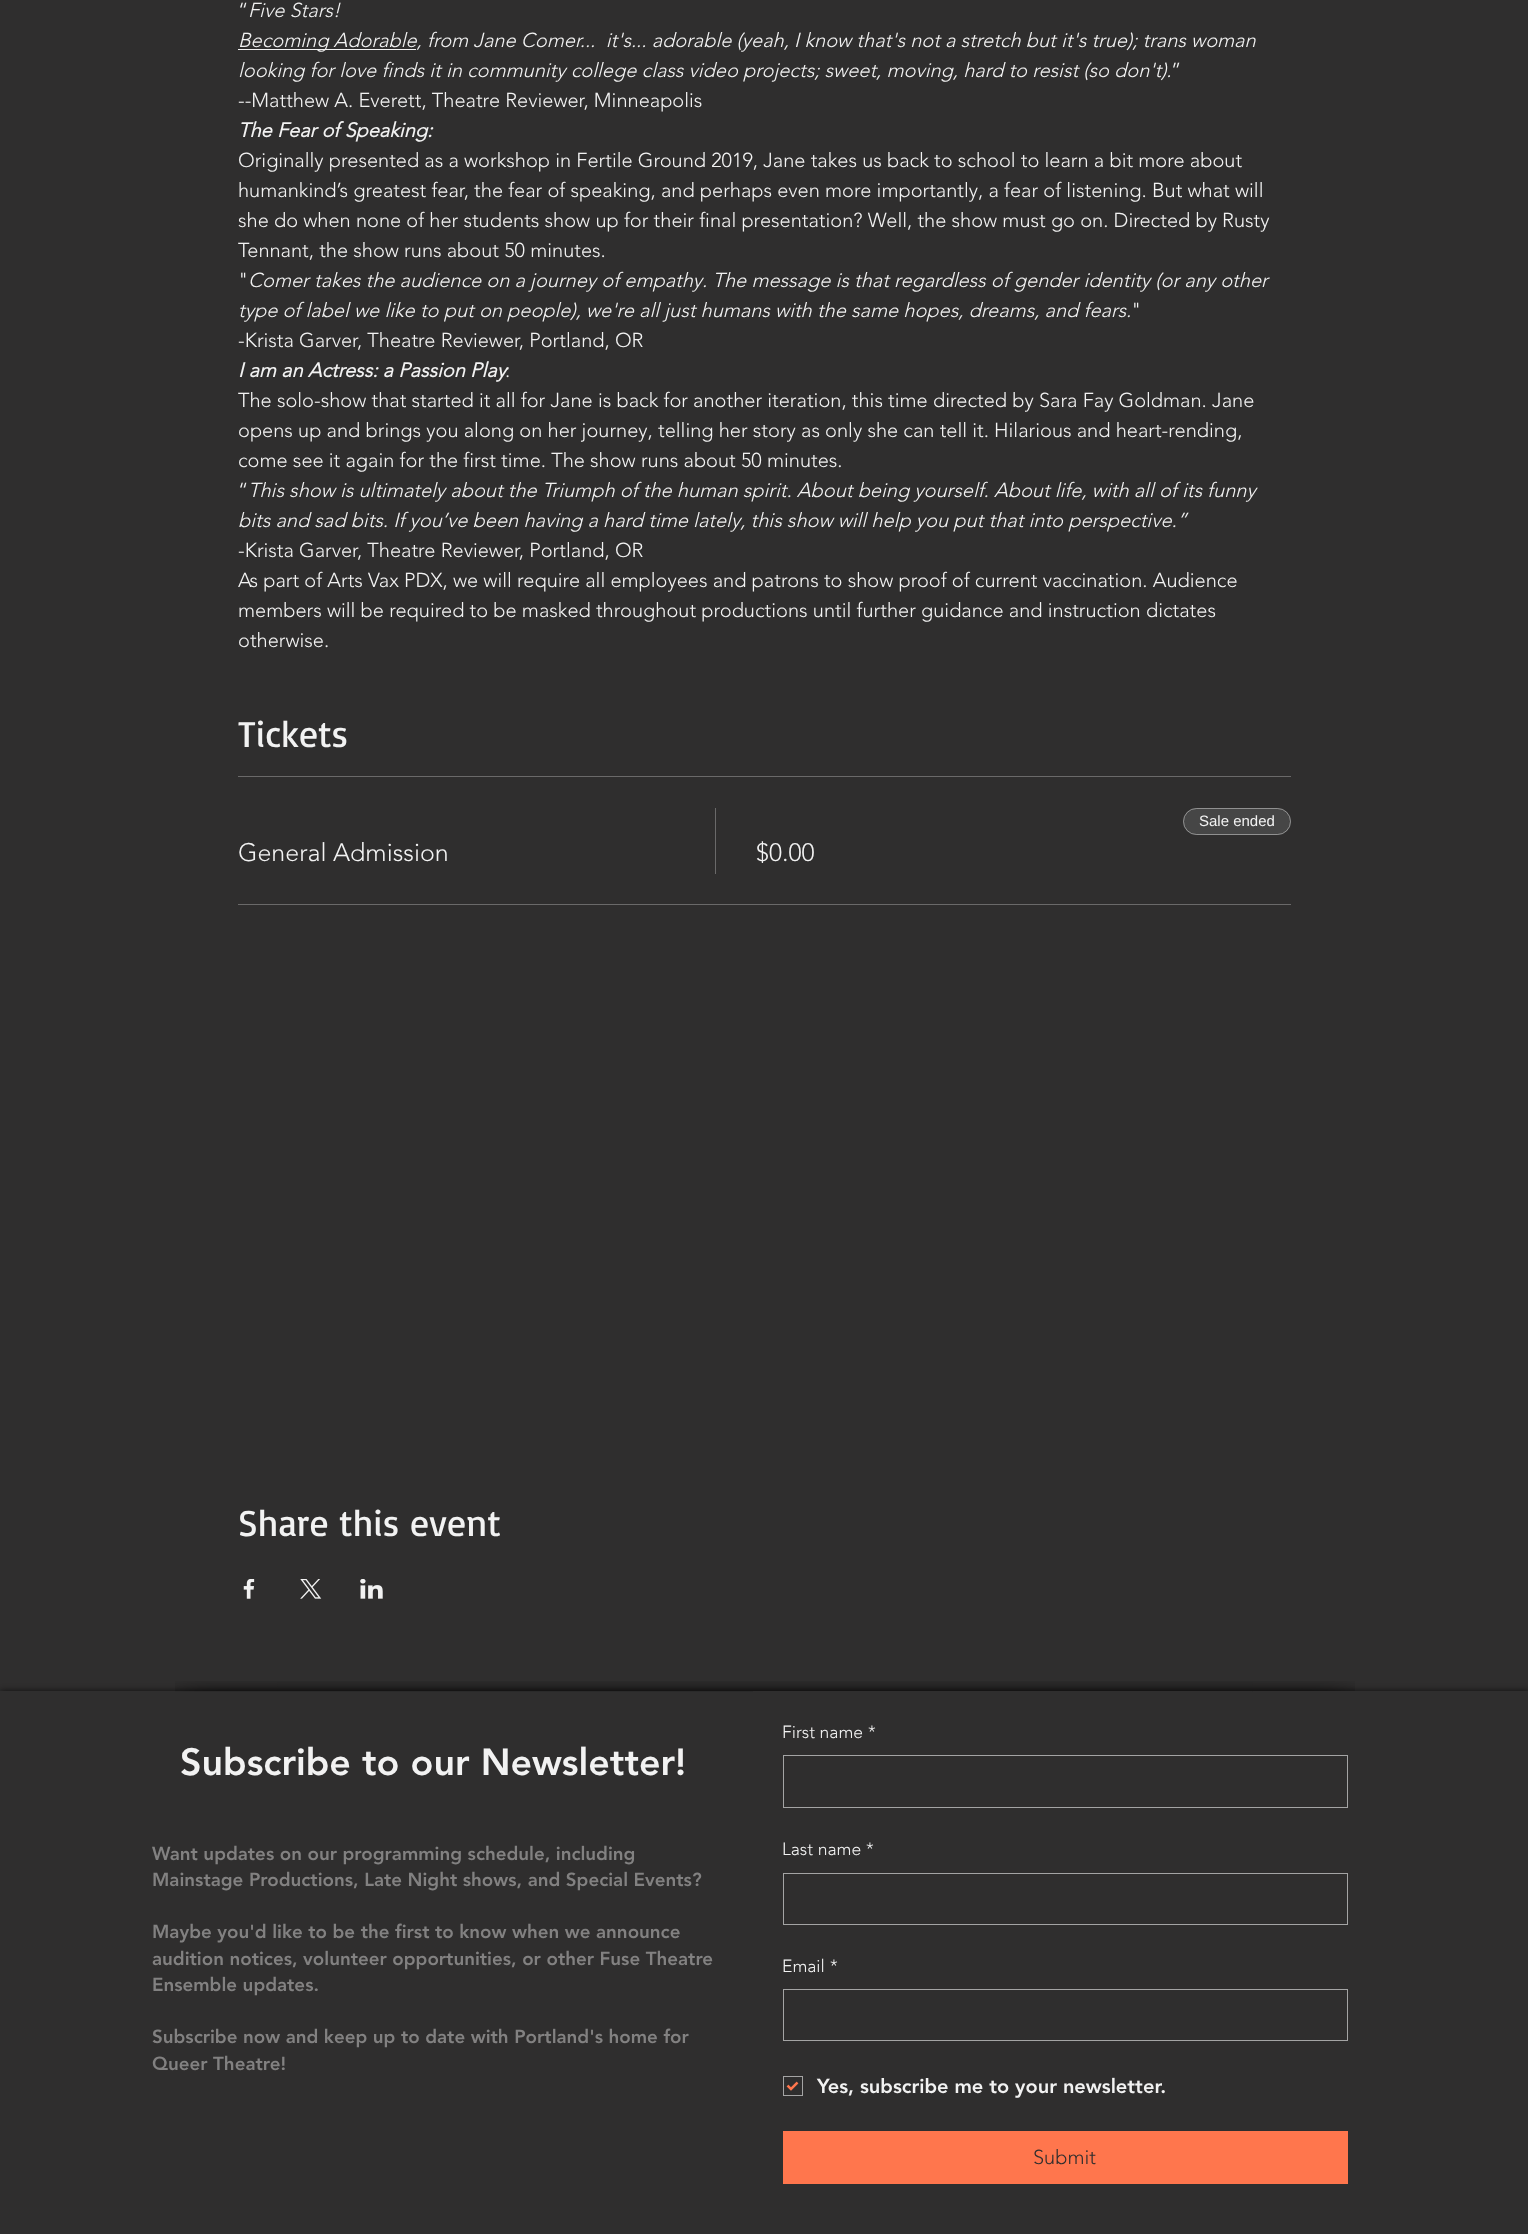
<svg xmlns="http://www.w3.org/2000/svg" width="1528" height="2234">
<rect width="100%" height="100%" fill="#2f2e2e"/>
<text x="238" y="17" style="font-family:'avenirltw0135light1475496';font-size:20px;font-weight:300;fill:#f2f2f2">“</text>
<text x="248" y="17" style="font-family:'avenirltw0135light1475496';font-size:20px;font-weight:300;font-style:italic;fill:#f2f2f2">Five Stars!</text>
<rect x="238" y="49" width="178" height="1" fill="#f2f2f2"/>
<text x="238" y="47" style="font-family:'avenirltw0135light1475496';font-size:20px;font-weight:300;font-style:italic;fill:#f2f2f2" xml:space="preserve">Becoming Adorable, from Jane Comer...  it's... adorable (yeah, I know that's not a stretch but it's true); trans woman</text>
<text x="238" y="77" style="font-family:'avenirltw0135light1475496';font-size:20px;font-weight:300;font-style:italic;fill:#f2f2f2">looking for love finds it in community college class video projects; sweet, moving, hard to resist (so don't).</text>
<text x="1171" y="77" style="font-family:'avenirltw0135light1475496';font-size:20px;font-weight:300;fill:#f2f2f2">”</text>
<text x="238" y="107" style="font-family:'avenirltw0135light1475496';font-size:20px;font-weight:300;fill:#f2f2f2">--Matthew A. Everett, Theatre Reviewer, Minneapolis</text>
<text x="238" y="137" style="font-family:'avenirltw0135light1475496';font-size:20px;font-weight:bold;font-style:italic;fill:#f2f2f2">The Fear of Speaking:</text>
<text x="238" y="167" style="font-family:'avenirltw0135light1475496';font-size:20px;font-weight:300;fill:#f2f2f2">Originally presented as a workshop in Fertile Ground 2019, Jane takes us back to school to learn a bit more about</text>
<text x="238" y="197" style="font-family:'avenirltw0135light1475496';font-size:20px;font-weight:300;fill:#f2f2f2">humankind’s greatest fear, the fear of speaking, and perhaps even more importantly, a fear of listening. But what will</text>
<text x="238" y="227" style="font-family:'avenirltw0135light1475496';font-size:20px;font-weight:300;fill:#f2f2f2">she do when none of her students show up for their final presentation? Well, the show must go on. Directed by Rusty</text>
<text x="238" y="257" style="font-family:'avenirltw0135light1475496';font-size:20px;font-weight:300;fill:#f2f2f2">Tennant, the show runs about 50 minutes.</text>
<text x="238" y="287" style="font-family:'avenirltw0135light1475496';font-size:20px;font-weight:300;fill:#f2f2f2">"</text>
<text x="248" y="287" style="font-family:'avenirltw0135light1475496';font-size:20px;font-weight:300;font-style:italic;fill:#f2f2f2">Comer takes the audience on a journey of empathy. The message is that regardless of gender identity (or any other</text>
<text x="238" y="317" style="font-family:'avenirltw0135light1475496';font-size:20px;font-weight:300;font-style:italic;fill:#f2f2f2">type of label we like to put on people), we're all just humans with the same hopes, dreams, and fears.</text>
<text x="1131" y="317" style="font-family:'avenirltw0135light1475496';font-size:20px;font-weight:300;fill:#f2f2f2">"</text>
<text x="238" y="347" style="font-family:'avenirltw0135light1475496';font-size:20px;font-weight:300;fill:#f2f2f2">-Krista Garver, Theatre Reviewer, Portland, OR</text>
<text x="238" y="377" style="font-family:'avenirltw0135light1475496';font-size:20px;font-weight:bold;font-style:italic;fill:#f2f2f2">I am an Actress: a Passion Play</text>
<text x="505" y="377" style="font-family:'avenirltw0135light1475496';font-size:20px;font-weight:300;fill:#f2f2f2">:</text>
<text x="238" y="407" style="font-family:'avenirltw0135light1475496';font-size:20px;font-weight:300;fill:#f2f2f2">The solo-show that started it all for Jane is back for another iteration, this time directed by Sara Fay Goldman. Jane</text>
<text x="238" y="437" style="font-family:'avenirltw0135light1475496';font-size:20px;font-weight:300;fill:#f2f2f2">opens up and brings you along on her journey, telling her story as only she can tell it. Hilarious and heart-rending,</text>
<text x="238" y="467" style="font-family:'avenirltw0135light1475496';font-size:20px;font-weight:300;fill:#f2f2f2">come see it again for the first time. The show runs about 50 minutes.</text>
<text x="238" y="497" style="font-family:'avenirltw0135light1475496';font-size:20px;font-weight:300;fill:#f2f2f2">“</text>
<text x="248" y="497" style="font-family:'avenirltw0135light1475496';font-size:20px;font-weight:300;font-style:italic;fill:#f2f2f2">This show is ultimately about the Triumph of the human spirit. About being yourself. About life, with all of its funny</text>
<text x="238" y="527" style="font-family:'avenirltw0135light1475496';font-size:20px;font-weight:300;font-style:italic;fill:#f2f2f2">bits and sad bits. If you’ve been having a hard time lately, this show will help you put that into perspective.”</text>
<text x="238" y="557" style="font-family:'avenirltw0135light1475496';font-size:20px;font-weight:300;fill:#f2f2f2">-Krista Garver, Theatre Reviewer, Portland, OR</text>
<text x="238" y="587" style="font-family:'avenirltw0135light1475496';font-size:20px;font-weight:300;fill:#f2f2f2">As part of Arts Vax PDX, we will require all employees and patrons to show proof of current vaccination. Audience</text>
<text x="238" y="617" style="font-family:'avenirltw0135light1475496';font-size:20px;font-weight:300;fill:#f2f2f2">members will be required to be masked throughout productions until further guidance and instruction dictates</text>
<text x="238" y="647" style="font-family:'avenirltw0135light1475496';font-size:20px;font-weight:300;fill:#f2f2f2">otherwise.</text>
<text x="238" y="747" style="font-family:Basic;font-size:37.5px;fill:#f2f2f2">Tickets</text>
<rect x="238" y="776" width="1053" height="1" fill="#6a6969"/>
<rect x="238" y="904" width="1053" height="1" fill="#6a6969"/>
<text x="238" y="861" style="font-family:'avenirltw0135light1475496';font-size:25px;font-weight:300;fill:#f2f2f2">General Admission</text>
<rect x="715" y="808" width="1" height="66" fill="#6a6969"/>
<rect x="1183" y="808" width="108" height="27" rx="13.5" fill="#464646"/>
<rect x="1183.5" y="808.5" width="107" height="26" rx="13" fill="none" stroke="#ffffff66"/>
<text x="1199" y="826" style="font-family:Liberation Sans;font-size:15px;fill:#f2f2f2">Sale ended</text>
<text x="756" y="861" style="font-family:'avenirltw0135light1475496';font-size:25px;font-weight:300;fill:#f2f2f2">$0.00</text>
<text x="238" y="1536" style="font-family:Basic;font-size:37.5px;fill:#f2f2f2">Share this event</text>
<image x="243" y="1579" width="12" height="20" href="media/1.png"/>
<image x="300" y="1579" width="22" height="20" href="media/2.png"/>
<image x="360" y="1579" width="23" height="20" href="media/3.png"/>
<rect y="1691" width="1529" height="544" fill="#000000b3" filter="blur(3px)"/>
<rect y="1691" width="1528" height="543" fill="#2f2e2e"/>
<image x="175" y="1681" width="103" height="11" href="media/4.png"/>
<image x="277" y="1681" width="976" height="11" href="media/5.png"/>
<image x="1252" y="1681" width="103" height="10" href="media/6.png"/>
<text x="180" y="1775" style="font-family:'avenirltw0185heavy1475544';font-size:37.5px;font-weight:900;fill:#f2f2f2">Subscribe to our Newsletter!</text>
<text x="152" y="1860" style="font-family:'avenirltw0185heavy1475544';font-size:18.75px;font-weight:900;fill:#828181">Want updates on our programming schedule, including</text>
<text x="152" y="1886" style="font-family:'avenirltw0185heavy1475544';font-size:18.75px;font-weight:900;fill:#828181">Mainstage Productions, Late Night shows, and Special Events?</text>
<text x="152" y="1938" style="font-family:'avenirltw0185heavy1475544';font-size:18.75px;font-weight:900;fill:#828181">Maybe you'd like to be the first to know when we announce</text>
<text x="152" y="1965" style="font-family:'avenirltw0185heavy1475544';font-size:18.75px;font-weight:900;fill:#828181">audition notices, volunteer opportunities, or other Fuse Theatre</text>
<text x="152" y="1991" style="font-family:'avenirltw0185heavy1475544';font-size:18.75px;font-weight:900;fill:#828181">Ensemble updates.</text>
<text x="152" y="2043" style="font-family:'avenirltw0185heavy1475544';font-size:18.75px;font-weight:900;fill:#828181">Subscribe now and keep up to date with Portland's home for</text>
<text x="152" y="2070" style="font-family:'avenirltw0185heavy1475544';font-size:18.75px;font-weight:900;fill:#828181">Queer Theatre!</text>
<rect x="753" y="1691" width="499" height="1" fill="#2f2e2e"/>
<text x="782" y="1738" style="font-family:'avenirltw0135light1475496';font-size:17.5px;font-weight:300;fill:#f2f2f2">First name</text>
<text x="868" y="1738" style="font-family:'avenirltw0135light1475496';font-size:17.5px;font-weight:300;fill:#f2f2f2">*</text>
<rect x="783.5" y="1755.5" width="564" height="52" fill="none" stroke="#a4a4a4"/>
<text x="782" y="1855" style="font-family:'avenirltw0135light1475496';font-size:17.5px;font-weight:300;fill:#f2f2f2">Last name</text>
<text x="866" y="1855" style="font-family:'avenirltw0135light1475496';font-size:17.5px;font-weight:300;fill:#f2f2f2">*</text>
<rect x="783.5" y="1873.5" width="564" height="51" fill="none" stroke="#a4a4a4"/>
<text x="782" y="1972" style="font-family:'avenirltw0135light1475496';font-size:17.5px;font-weight:300;fill:#f2f2f2">Email</text>
<text x="830" y="1972" style="font-family:'avenirltw0135light1475496';font-size:17.5px;font-weight:300;fill:#f2f2f2">*</text>
<rect x="783.5" y="1989.5" width="564" height="51" fill="none" stroke="#a4a4a4"/>
<rect x="783.5" y="2076.5" width="19" height="19" fill="none" stroke="#a4a4a4"/>
<image x="786" y="2081" width="13" height="10" href="media/7.png"/>
<text x="817" y="2093" style="font-family:'avenirltw0185heavy1475544';font-size:20px;font-weight:900;fill:#f2f2f2">Yes, subscribe me to your newsletter.</text>
<rect x="783" y="2131" width="565" height="53" fill="#ff764d"/>
<text x="1033" y="2164" style="font-family:'avenirltw0135light1475496';font-size:20px;font-weight:300;fill:#2f2e2e">Submit</text>
</svg>
